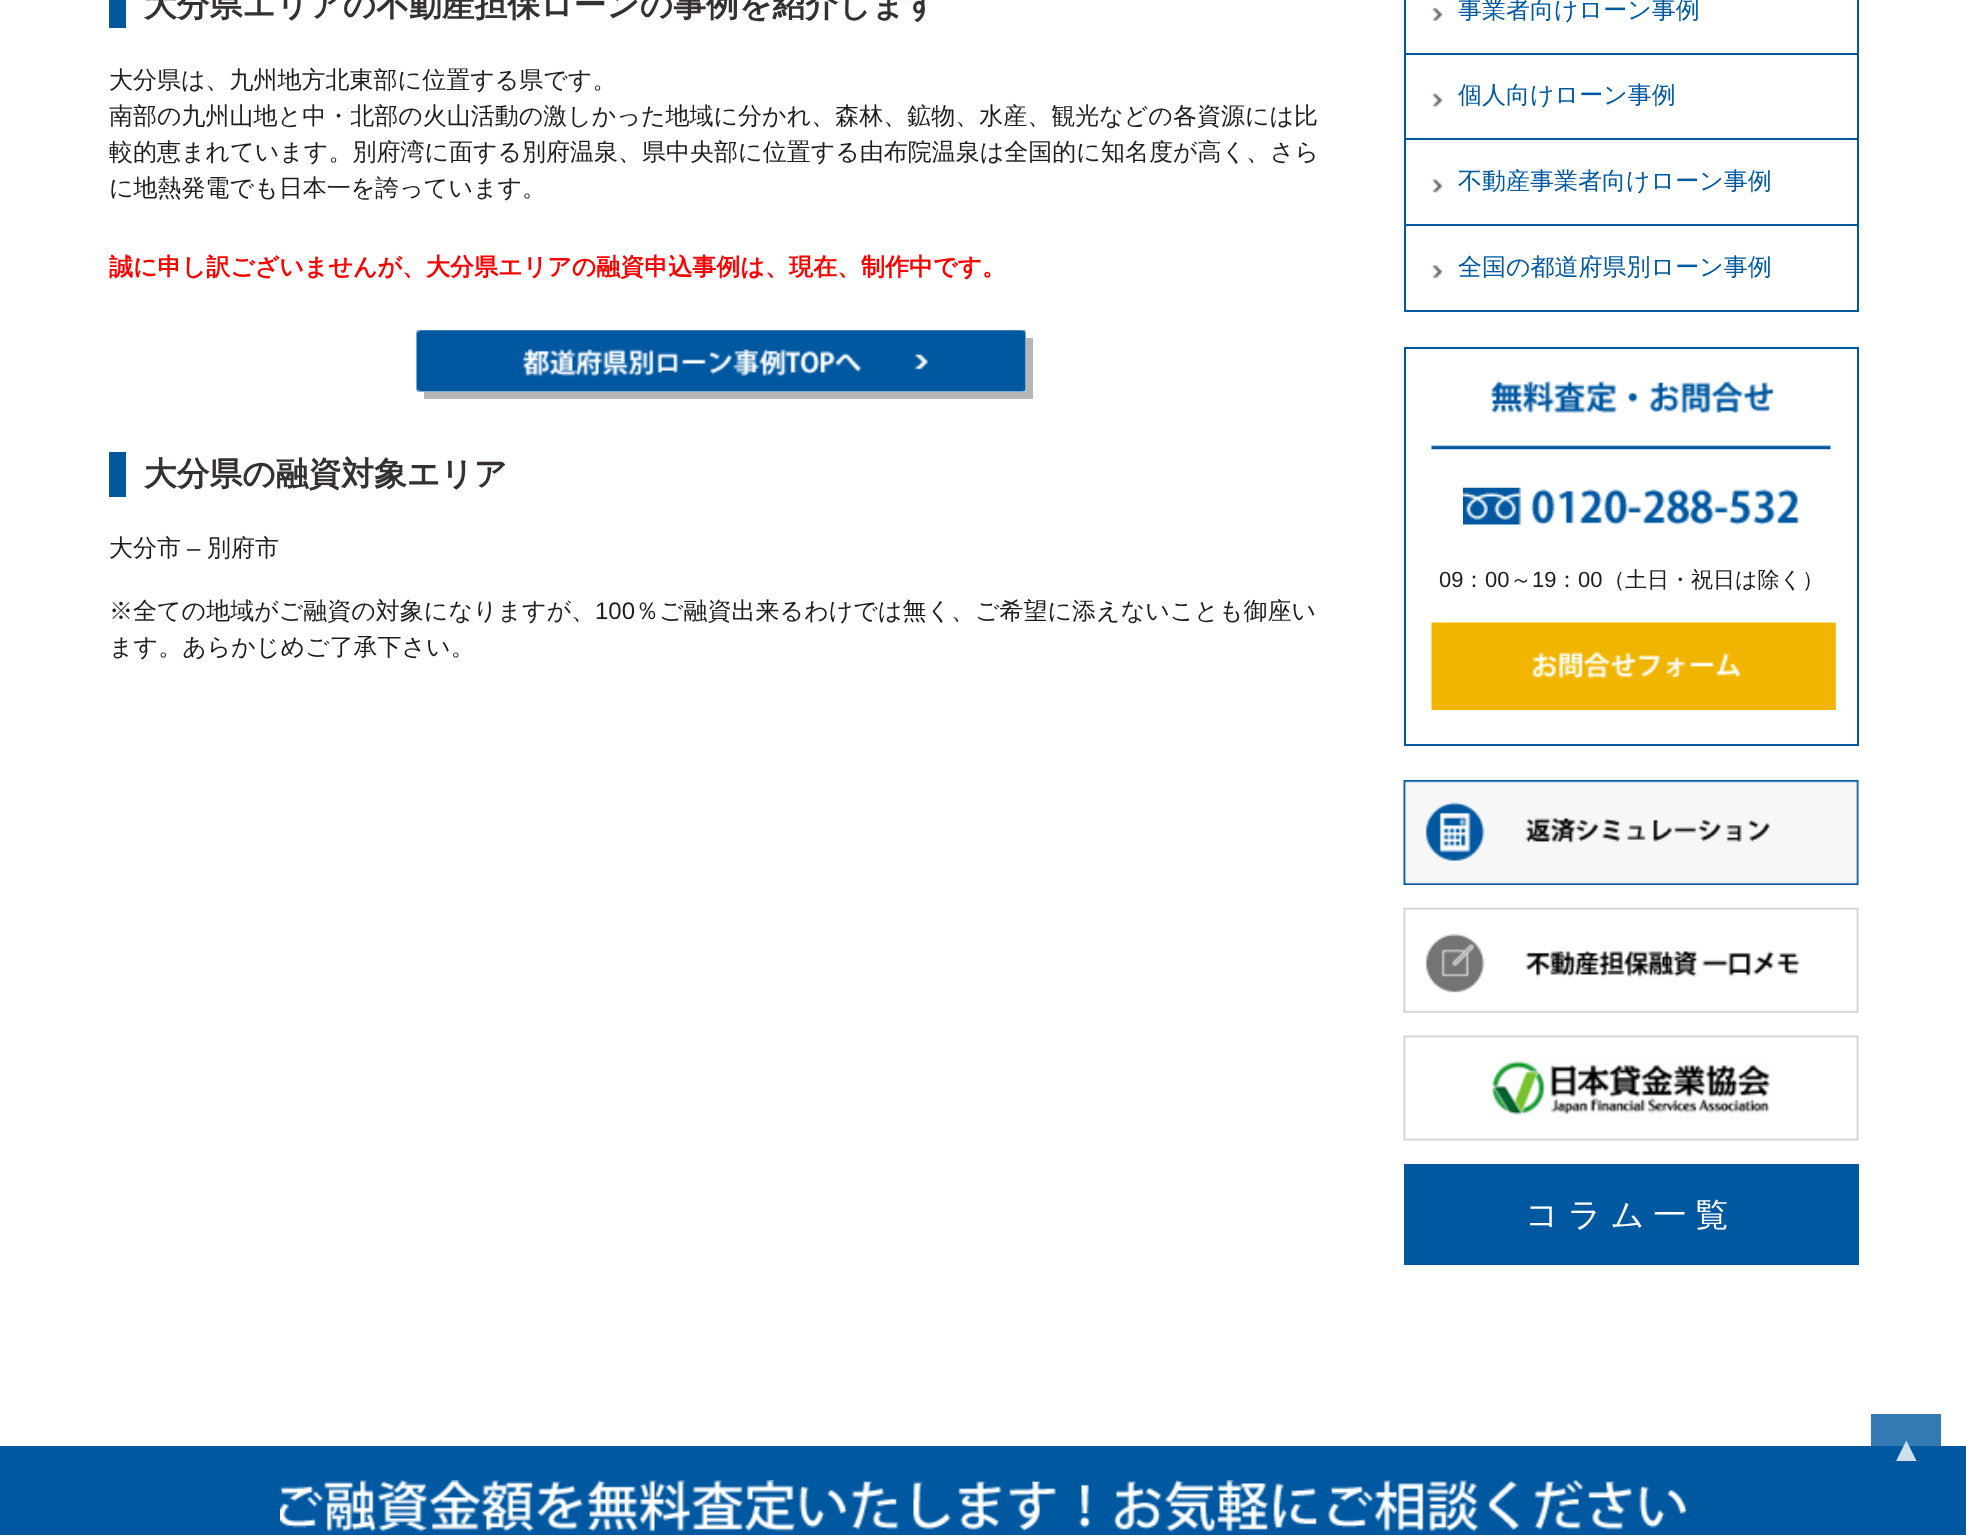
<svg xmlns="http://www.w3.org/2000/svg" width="1966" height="1535">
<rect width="100%" height="100%" fill="#fff"/>
<rect x="1871" y="1414" width="70" height="32" fill="#3379b4"/>
<rect x="109" width="17" height="28" fill="#0058a1"/>
<text x="144" y="16" style="font-family:WenQuanYi Zen Hei;font-size:32.75px;font-weight:bold;fill:#343130">大分県エリアの不動産担保ローンの事例を紹介します</text>
<text x="109" y="88" style="font-family:WenQuanYi Zen Hei;font-size:24px;font-weight:500;fill:#1d1d1d">大分県は、九州地方北東部に位置する県です。</text>
<text x="109" y="124" style="font-family:WenQuanYi Zen Hei;font-size:24px;font-weight:500;fill:#1d1d1d">南部の九州山地と中・北部の火山活動の激しかった地域に分かれ、森林、鉱物、水産、観光などの各資源には比</text>
<text x="109" y="160" style="font-family:WenQuanYi Zen Hei;font-size:24px;font-weight:500;fill:#1d1d1d">較的恵まれています。別府湾に面する別府温泉、県中央部に位置する由布院温泉は全国的に知名度が高く、さら</text>
<text x="109" y="196" style="font-family:WenQuanYi Zen Hei;font-size:24px;font-weight:500;fill:#1d1d1d">に地熱発電でも日本一を誇っています。</text>
<text x="109" y="275" style="font-family:WenQuanYi Zen Hei;font-size:24px;font-weight:bold;fill:#f00">誠に申し訳ございませんが、大分県エリアの融資申込事例は、現在、制作中です。</text>
<path d="M424 392v7h609v-61h-7v54z" fill="#b6b6b6"/>
<image x="416" y="330" width="610" height="62" href="media/1.png"/>
<rect x="109" y="452" width="17" height="45" fill="#0058a1"/>
<text x="144" y="485" style="font-family:WenQuanYi Zen Hei;font-size:32.75px;font-weight:bold;fill:#343130">大分県の融資対象エリア</text>
<text x="109" y="556" style="font-family:WenQuanYi Zen Hei;font-size:24px;font-weight:500;fill:#1d1d1d">大分市</text>
<text x="187" y="556" style="font-family:Liberation Sans;font-size:24px;fill:#1d1d1d">–</text>
<text x="207" y="556" style="font-family:WenQuanYi Zen Hei;font-size:24px;font-weight:500;fill:#1d1d1d">別府市</text>
<text x="109" y="619" style="font-family:WenQuanYi Zen Hei;font-size:24px;font-weight:500;fill:#1d1d1d">※全ての地域がご融資の対象になりますが、</text>
<text x="595" y="619" style="font-family:Liberation Sans;font-size:24px;fill:#1d1d1d">100</text>
<text x="635" y="619" style="font-family:WenQuanYi Zen Hei;font-size:24px;font-weight:500;fill:#1d1d1d">％ご融資出来るわけでは無く、ご希望に添えないことも御座い</text>
<text x="109" y="655" style="font-family:WenQuanYi Zen Hei;font-size:24px;font-weight:500;fill:#1d1d1d">ます。あらかじめご了承下さい。</text>
<rect x="1405" y="-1" width="453" height="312" fill="none" stroke="#0058a1" stroke-width="2"/>
<image x="1431" y="7" width="11" height="14" href="media/2.png"/>
<text x="1458" y="18" style="font-family:WenQuanYi Zen Hei;font-size:24px;font-weight:500;fill:#0058a1">事業者向けローン事例</text>
<rect x="1405" y="53" width="452" height="2" fill="#0058a1"/>
<image x="1431" y="93" width="11" height="14" href="media/3.png"/>
<text x="1458" y="103" style="font-family:WenQuanYi Zen Hei;font-size:24px;font-weight:500;fill:#0058a1">個人向けローン事例</text>
<rect x="1405" y="138" width="452" height="2" fill="#0058a1"/>
<image x="1431" y="179" width="11" height="14" href="media/4.png"/>
<text x="1458" y="189" style="font-family:WenQuanYi Zen Hei;font-size:24px;font-weight:500;fill:#0058a1">不動産事業者向けローン事例</text>
<rect x="1405" y="224" width="452" height="2" fill="#0058a1"/>
<image x="1431" y="265" width="11" height="14" href="media/5.png"/>
<text x="1458" y="275" style="font-family:WenQuanYi Zen Hei;font-size:24px;font-weight:500;fill:#0058a1">全国の都道府県別ローン事例</text>
<rect x="1405" y="348" width="453" height="397" fill="none" stroke="#0058a1" stroke-width="2"/>
<image x="1431" y="445" width="400" height="5" href="media/6.png"/>
<image x="1490" y="381" width="283" height="32" href="media/7.png"/>
<image x="1463" y="487" width="337" height="38" href="media/8.png"/>
<text x="1439" y="587" style="font-family:Liberation Sans;font-size:22px;fill:#1d1d1d">09</text>
<text x="1463" y="587" style="font-family:WenQuanYi Zen Hei;font-size:22px;font-weight:500;fill:#1d1d1d">：</text>
<text x="1485" y="587" style="font-family:Liberation Sans;font-size:22px;fill:#1d1d1d">00</text>
<text x="1510" y="587" style="font-family:WenQuanYi Zen Hei;font-size:22px;font-weight:500;fill:#1d1d1d">～</text>
<text x="1532" y="587" style="font-family:Liberation Sans;font-size:22px;fill:#1d1d1d">19</text>
<text x="1556" y="587" style="font-family:WenQuanYi Zen Hei;font-size:22px;font-weight:500;fill:#1d1d1d">：</text>
<text x="1578" y="587" style="font-family:Liberation Sans;font-size:22px;fill:#1d1d1d">00</text>
<text x="1603" y="587" style="font-family:WenQuanYi Zen Hei;font-size:22px;font-weight:500;fill:#1d1d1d">（土日・祝日は除く）</text>
<image x="1431" y="622" width="405" height="88" href="media/9.png"/>
<image x="1403" y="780" width="456" height="105" href="media/10.png"/>
<image x="1403" y="907" width="456" height="106" href="media/11.png"/>
<image x="1403" y="1035" width="456" height="106" href="media/12.png"/>
<rect x="1404" y="1164" width="455" height="101" fill="#0058a1"/>
<text x="1525" y="1226" style="font-family:WenQuanYi Zen Hei;font-size:33.25px;font-weight:500;letter-spacing:8.75px;fill:#fff">コラム一覧</text>
<rect y="1446" width="1966" height="89" fill="#0058a1"/>
<text x="1889" y="1461" style="font-family:Liberation Sans;font-size:35px;fill:#cddeed">▲</text>
<image x="280" y="1480" width="1408" height="52" href="media/13.png"/>
</svg>
